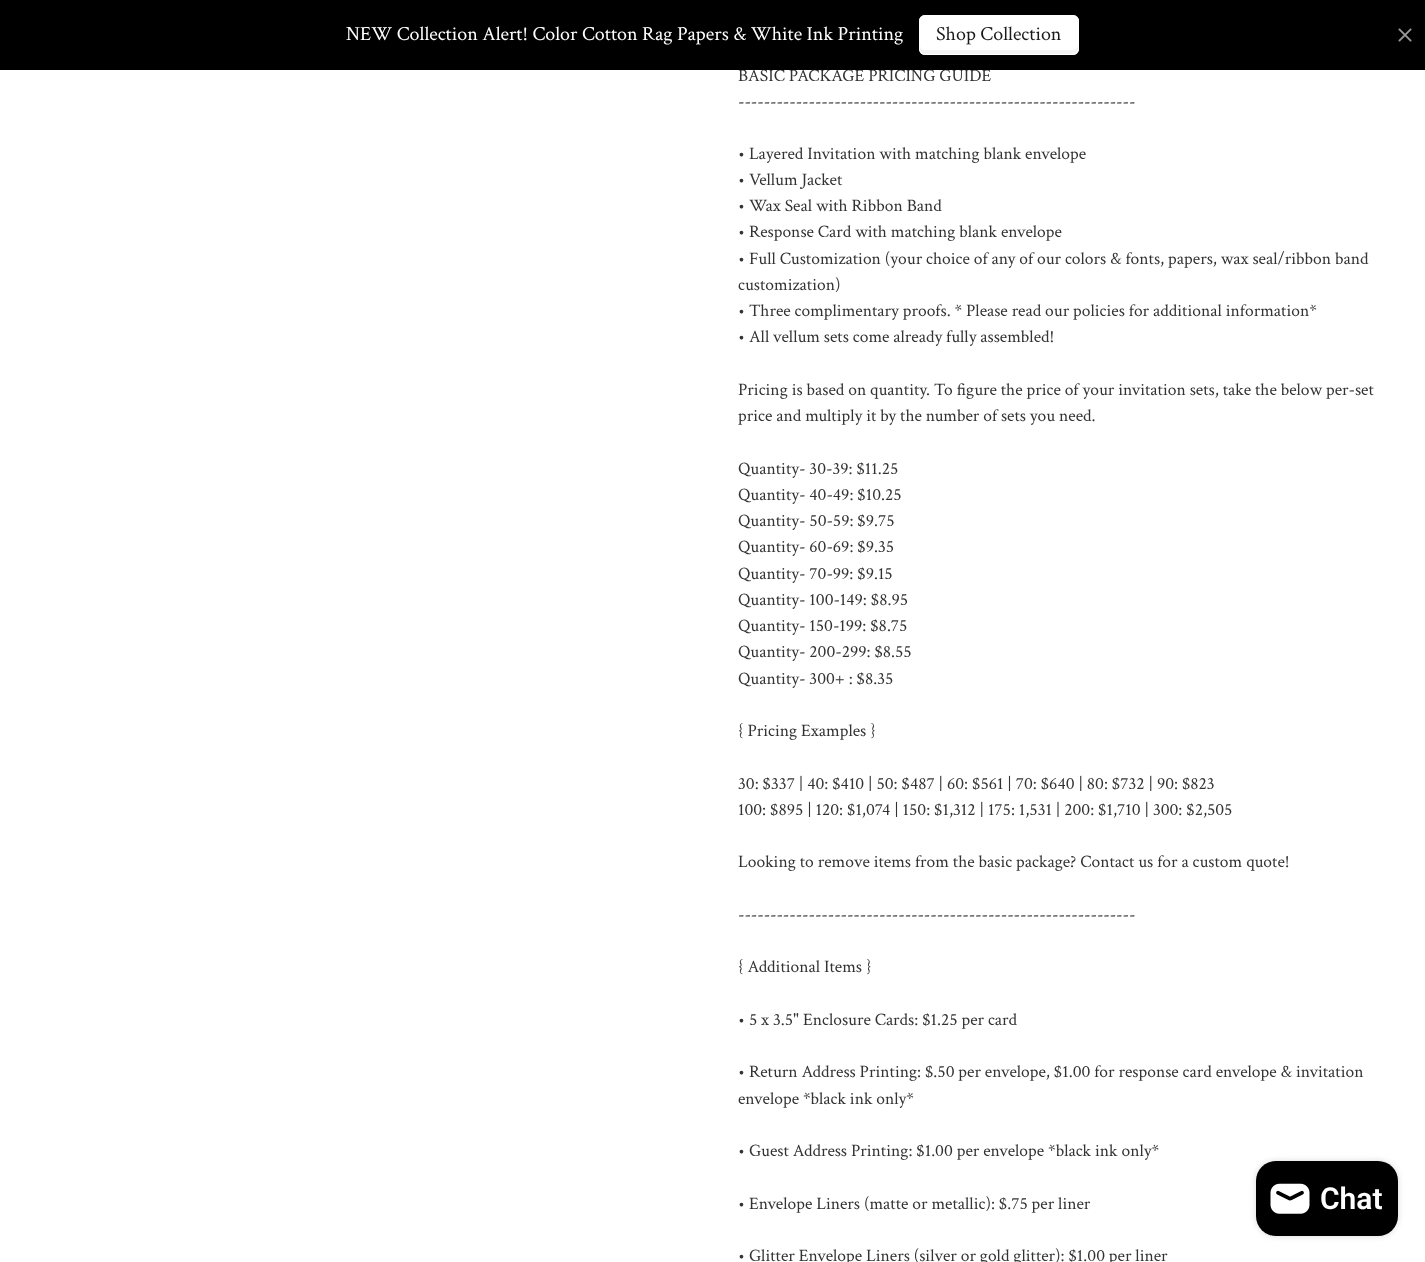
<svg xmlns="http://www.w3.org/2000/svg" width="1425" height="1262">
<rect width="100%" height="100%" fill="#fff"/>
<text x="738" y="81" style="font-family:Crimson Text;font-size:17.5px;fill:#333">BASIC PACKAGE PRICING GUIDE</text>
<rect width="1425" height="70" fill="#000"/>
<text x="346" y="40" style="font-family:Crimson Text;font-size:20px;fill:#fff">NEW Collection Alert! Color Cotton Rag Papers &amp; White Ink Printing</text>
<rect x="919" y="15" width="160" height="40" rx="6" fill="#fff"/>
<path d="M920 45v4c0 3 2 5 5 5h148c3 0 5-2 5-5v-4c0 3-3 5-5 5h-148c-3 0-5-2-5-5z" fill="#f2f2f2"/>
<rect x="919.5" y="15.5" width="159" height="39" rx="5.5" fill="none" stroke="#fff"/>
<text x="936" y="40" style="font-family:Crimson Text;font-size:20px;fill:#1a1a1a">Shop Collection</text>
<image x="1398" y="28" width="14" height="14" href="media/1.png"/>
<text x="738" y="107" style="font-family:Crimson Text;font-size:17.5px;fill:#333">--------------------------------------------------------------</text>
<text x="738" y="159" style="font-family:Crimson Text;font-size:17.5px;fill:#333">• Layered Invitation with matching blank envelope</text>
<text x="738" y="185" style="font-family:Crimson Text;font-size:17.5px;fill:#333">• Vellum Jacket</text>
<text x="738" y="211" style="font-family:Crimson Text;font-size:17.5px;fill:#333">• Wax Seal with Ribbon Band</text>
<text x="738" y="237" style="font-family:Crimson Text;font-size:17.5px;fill:#333">• Response Card with matching blank envelope</text>
<text x="738" y="264" style="font-family:Crimson Text;font-size:17.5px;fill:#333">• Full Customization (your choice of any of our colors &amp; fonts, papers, wax seal/ribbon band</text>
<text x="738" y="290" style="font-family:Crimson Text;font-size:17.5px;fill:#333">customization)</text>
<text x="738" y="316" style="font-family:Crimson Text;font-size:17.5px;fill:#333">• Three complimentary proofs. * Please read our policies for additional information*</text>
<text x="738" y="342" style="font-family:Crimson Text;font-size:17.5px;fill:#333">• All vellum sets come already fully assembled!</text>
<text x="738" y="395" style="font-family:Crimson Text;font-size:17.5px;fill:#333">Pricing is based on quantity. To figure the price of your invitation sets, take the below per-set</text>
<text x="738" y="421" style="font-family:Crimson Text;font-size:17.5px;fill:#333">price and multiply it by the number of sets you need.</text>
<text x="738" y="474" style="font-family:Crimson Text;font-size:17.5px;fill:#333">Quantity- 30-39: $11.25</text>
<text x="738" y="500" style="font-family:Crimson Text;font-size:17.5px;fill:#333">Quantity- 40-49: $10.25</text>
<text x="738" y="526" style="font-family:Crimson Text;font-size:17.5px;fill:#333">Quantity- 50-59: $9.75</text>
<text x="738" y="552" style="font-family:Crimson Text;font-size:17.5px;fill:#333">Quantity- 60-69: $9.35</text>
<text x="738" y="579" style="font-family:Crimson Text;font-size:17.5px;fill:#333">Quantity- 70-99: $9.15</text>
<text x="738" y="605" style="font-family:Crimson Text;font-size:17.5px;fill:#333">Quantity- 100-149: $8.95</text>
<text x="738" y="631" style="font-family:Crimson Text;font-size:17.5px;fill:#333">Quantity- 150-199: $8.75</text>
<text x="738" y="657" style="font-family:Crimson Text;font-size:17.5px;fill:#333">Quantity- 200-299: $8.55</text>
<text x="738" y="684" style="font-family:Crimson Text;font-size:17.5px;fill:#333">Quantity- 300+ : $8.35</text>
<text x="738" y="736" style="font-family:Crimson Text;font-size:17.5px;fill:#333">{ Pricing Examples }</text>
<text x="738" y="789" style="font-family:Crimson Text;font-size:17.5px;fill:#333">30: $337 | 40: $410 | 50: $487 | 60: $561 | 70: $640 | 80: $732 | 90: $823</text>
<text x="738" y="815" style="font-family:Crimson Text;font-size:17.5px;fill:#333">100: $895 | 120: $1,074 | 150: $1,312 | 175: 1,531 | 200: $1,710 | 300: $2,505</text>
<text x="738" y="867" style="font-family:Crimson Text;font-size:17.5px;fill:#333">Looking to remove items from the basic package? Contact us for a custom quote!</text>
<text x="738" y="920" style="font-family:Crimson Text;font-size:17.5px;fill:#333">--------------------------------------------------------------</text>
<text x="738" y="972" style="font-family:Crimson Text;font-size:17.5px;fill:#333">{ Additional Items }</text>
<text x="738" y="1025" style="font-family:Crimson Text;font-size:17.5px;fill:#333">• 5 x 3.5" Enclosure Cards: $1.25 per card</text>
<text x="738" y="1077" style="font-family:Crimson Text;font-size:17.5px;fill:#333">• Return Address Printing: $.50 per envelope, $1.00 for response card envelope &amp; invitation</text>
<text x="738" y="1104" style="font-family:Crimson Text;font-size:17.5px;fill:#333">envelope *black ink only*</text>
<text x="738" y="1156" style="font-family:Crimson Text;font-size:17.5px;fill:#333">• Guest Address Printing: $1.00 per envelope *black ink only*</text>
<text x="738" y="1209" style="font-family:Crimson Text;font-size:17.5px;fill:#333">• Envelope Liners (matte or metallic): $.75 per liner</text>
<text x="738" y="1261" style="font-family:Crimson Text;font-size:17.5px;fill:#333">• Glitter Envelope Liners (silver or gold glitter): $1.00 per liner</text>
<rect x="1256" y="1161" width="142" height="75" rx="20" fill="#00000026" filter="blur(3px)"/>
<rect x="1256" y="1161" width="142" height="75" rx="20" fill="#000"/>
<image x="1270" y="1183" width="40" height="31" href="media/2.png"/>
<text x="1320" y="1209" style="font-family:Roboto;font-size:30px;font-weight:600;fill:#fff">Chat</text>
</svg>
